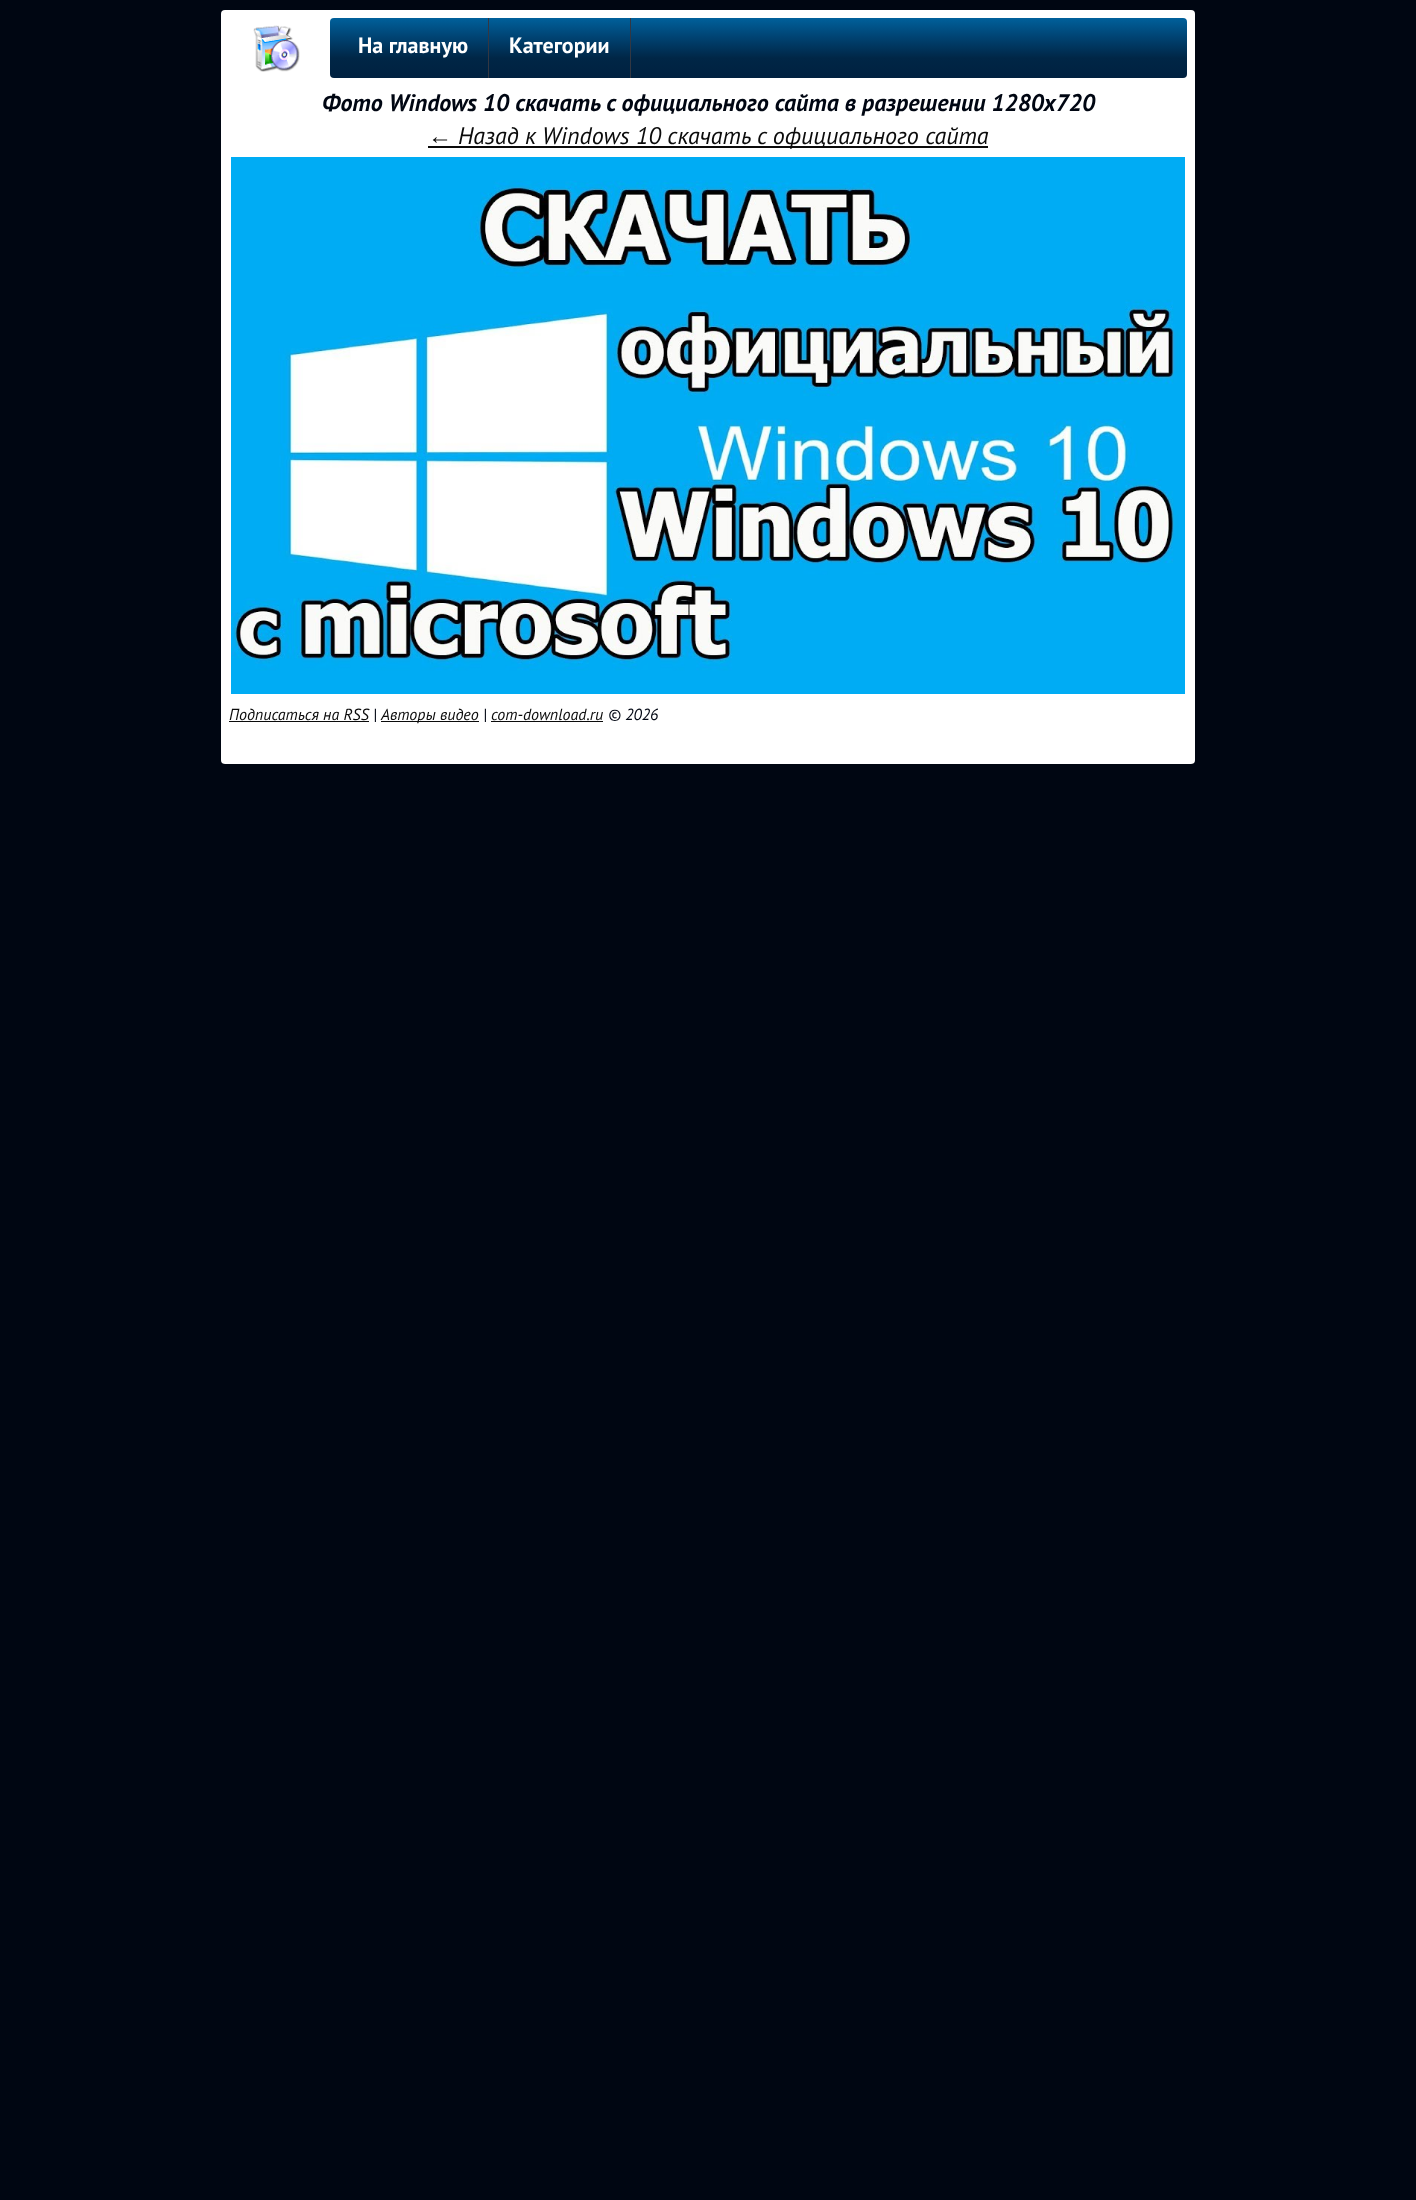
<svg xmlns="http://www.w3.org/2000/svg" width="1416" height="2200">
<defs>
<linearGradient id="g1" gradientUnits="userSpaceOnUse" x1="759" y1="18" x2="759" y2="78"><stop offset="0" stop-color="#00609b"/><stop offset="0.33" stop-color="#004271"/><stop offset="0.67" stop-color="#002646"/><stop offset="1" stop-color="#002140"/></linearGradient>
</defs>
<rect width="100%" height="100%" fill="#000612"/>
<rect x="221" y="10" width="974" height="754" rx="4" fill="#fff"/>
<image x="253" y="25" width="47" height="47" href="media/1.png"/>
<rect x="330" y="18" width="857" height="60" rx="4" fill="url(#g1)"/>
<rect x="488" y="18" width="1" height="60" fill="#333742"/>
<text x="358" y="53" style="font-family:PT Sans;font-size:22px;font-weight:bold;fill:#fff">На главную</text>
<rect x="630" y="18" width="1" height="60" fill="#333742"/>
<text x="509" y="53" style="font-family:PT Sans;font-size:22px;font-weight:bold;fill:#fff">Категории</text>
<text x="322" y="111" style="font-family:PT Sans;font-size:24px;font-weight:bold;font-style:italic;fill:#000612">Фото Windows 10 скачать с официального сайта в разрешении 1280x720</text>
<text x="428" y="144" style="font-family:Liberation Sans;font-size:24px;fill:#0b0b0b">←</text>
<rect x="428" y="146" width="560" height="2" fill="#0b0b0b"/>
<text x="458" y="144" style="font-family:PT Sans;font-size:24px;font-style:italic;fill:#0b0b0b">Назад к Windows 10 скачать с официального сайта</text>
<image x="231" y="157" width="954" height="537" href="media/2.png"/>
<text x="229" y="720" style="font-family:PT Sans;font-size:16px;font-style:italic;fill:#0b0b0b">Подписаться на RSS</text>
<rect x="229" y="721" width="140" height="1" fill="#0b0b0b"/>
<text x="373" y="720" style="font-family:PT Sans;font-size:16px;font-style:italic;fill:#000612">|</text>
<rect x="381" y="721" width="98" height="1" fill="#0b0b0b"/>
<text x="381" y="720" style="font-family:PT Sans;font-size:16px;font-style:italic;fill:#0b0b0b">Авторы видео</text>
<text x="483" y="720" style="font-family:PT Sans;font-size:16px;font-style:italic;fill:#000612">|</text>
<text x="491" y="720" style="font-family:PT Sans;font-size:16px;font-style:italic;fill:#0b0b0b">com-download.ru</text>
<rect x="491" y="721" width="112" height="1" fill="#0b0b0b"/>
<text x="608" y="720" style="font-family:PT Sans;font-size:16px;font-style:italic;fill:#000612">© 2026</text>
</svg>
